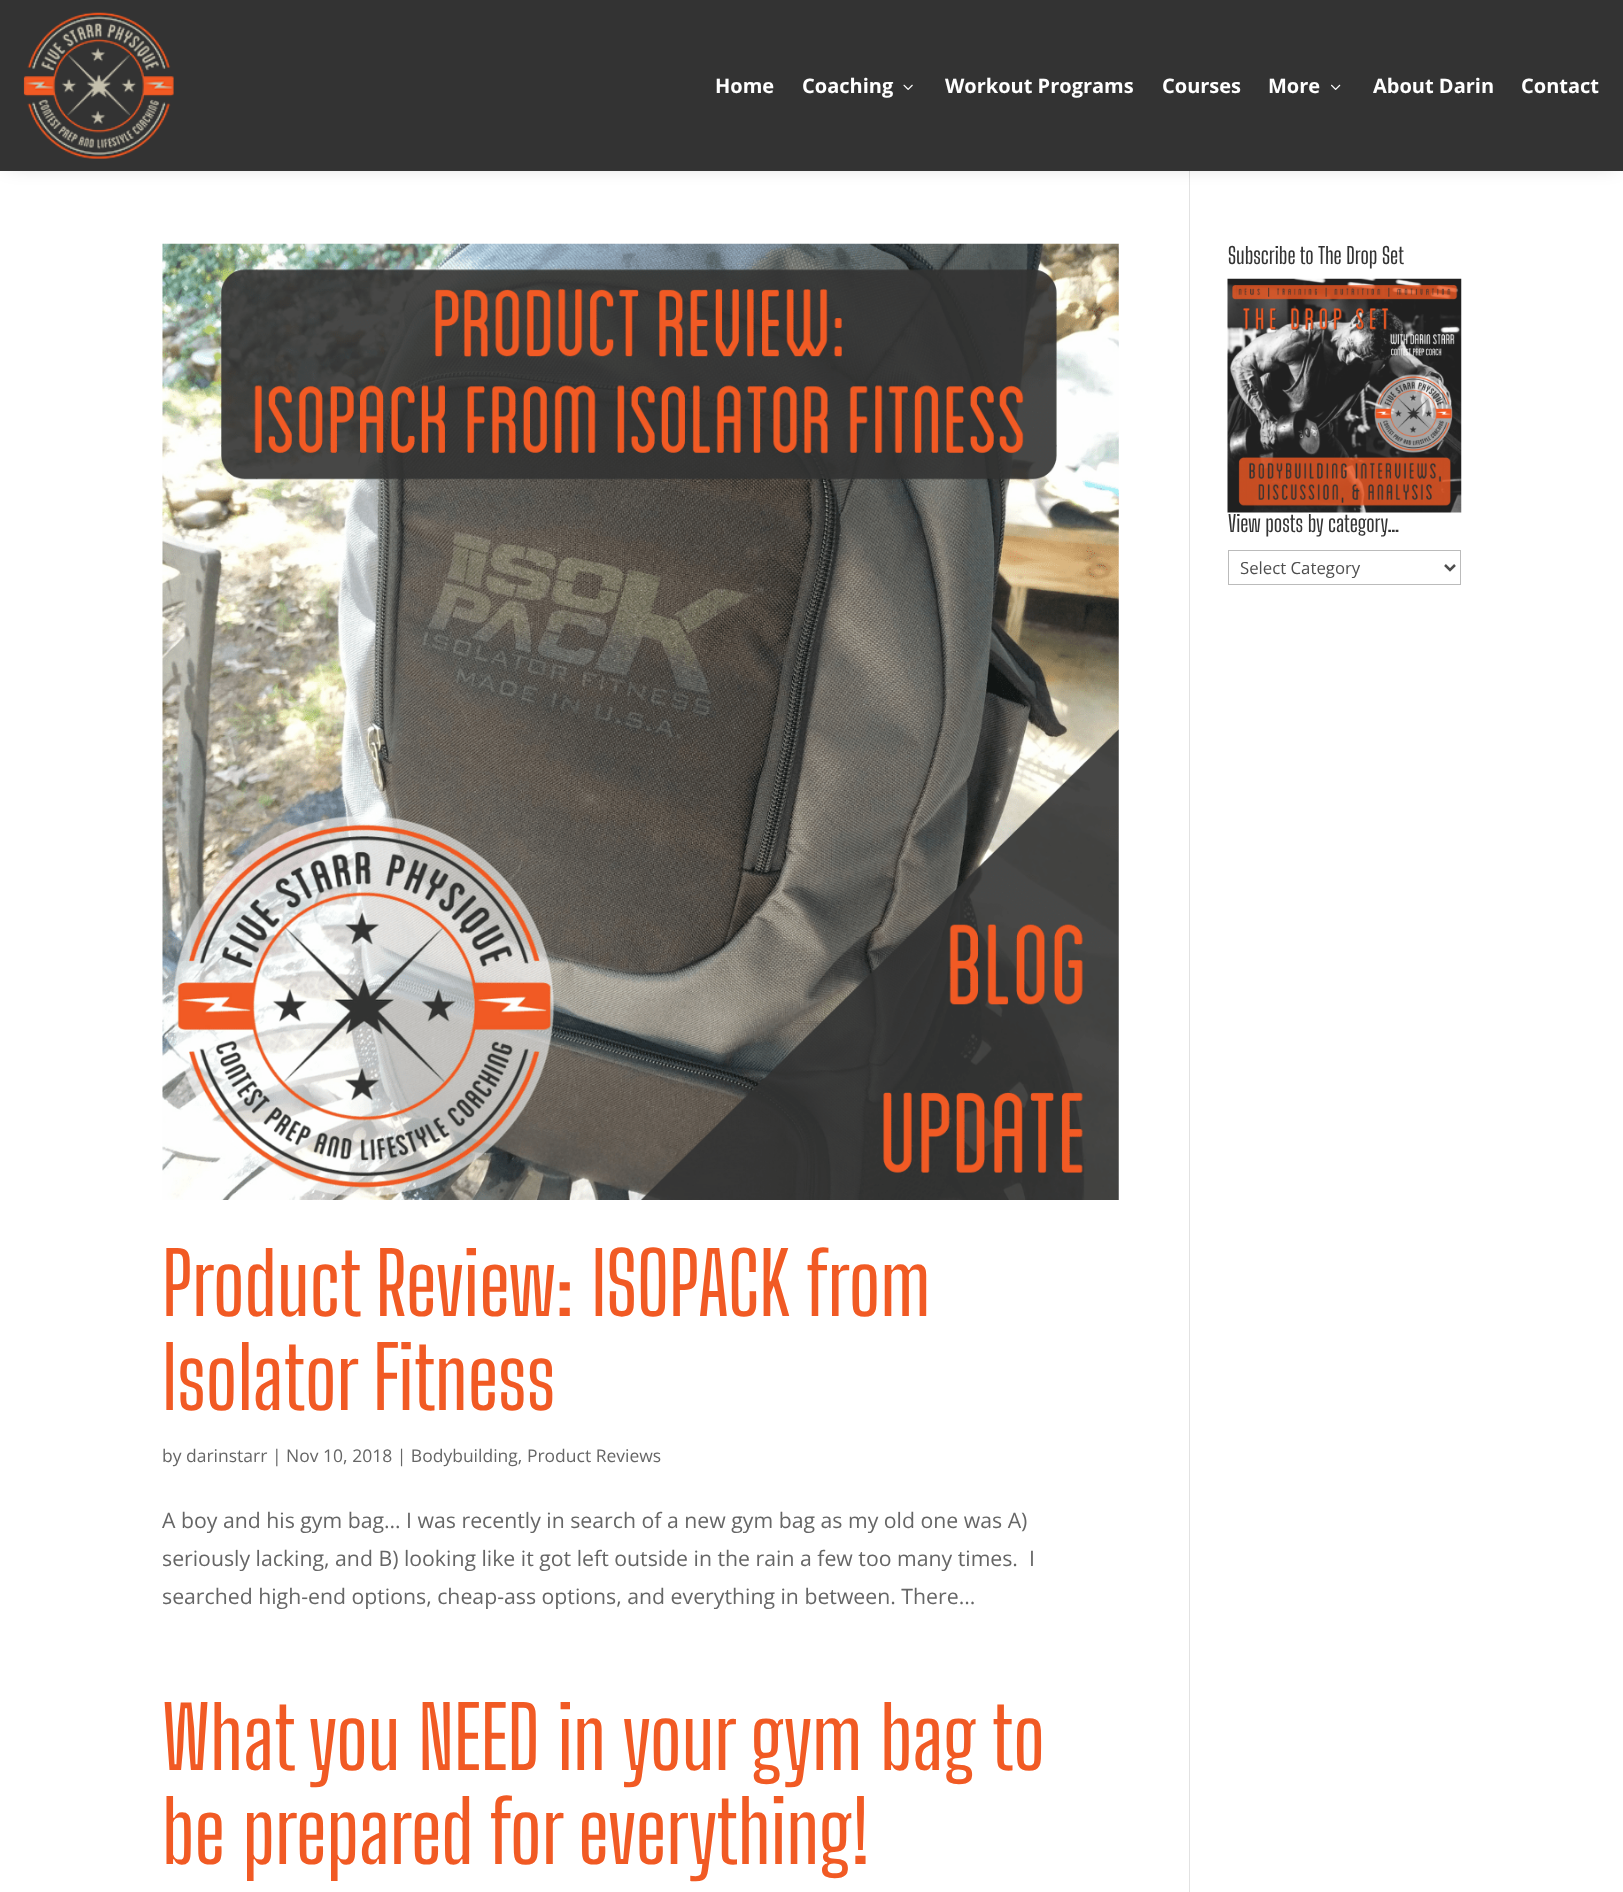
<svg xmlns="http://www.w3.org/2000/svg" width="1623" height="1892">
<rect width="100%" height="100%" fill="#fff"/>
<rect x="1189" y="171" width="1" height="1721" fill="#e2e2e2"/>
<rect x="8" y="5" width="1608" height="156" fill="#0000004d" filter="blur(11px)"/>
<rect width="1623" height="171" fill="#333"/>
<image x="23" y="12" width="151" height="147" href="media/1.png"/>
<text x="715" y="93" style="font-family:Open Sans;font-size:20px;font-weight:bold;fill:#fff">Home</text>
<text x="802" y="93" style="font-family:Open Sans;font-size:20px;font-weight:bold;fill:#fff">Coaching</text>
<image x="903" y="84" width="10" height="6" href="media/2.png"/>
<text x="945" y="93" style="font-family:Open Sans;font-size:20px;font-weight:bold;fill:#fff">Workout Programs</text>
<text x="1162" y="93" style="font-family:Open Sans;font-size:20px;font-weight:bold;fill:#fff">Courses</text>
<text x="1268" y="93" style="font-family:Open Sans;font-size:20px;font-weight:bold;fill:#fff">More</text>
<image x="1331" y="84" width="10" height="6" href="media/3.png"/>
<text x="1373" y="93" style="font-family:Open Sans;font-size:20px;font-weight:bold;fill:#fff">About Darin</text>
<text x="1521" y="93" style="font-family:Open Sans;font-size:20px;font-weight:bold;fill:#fff">Contact</text>
<text x="1228" y="264" style="font-family:Big Shoulders Display;font-size:22.5px;font-weight:500;fill:#333">Subscribe to The Drop Set</text>
<image x="1227" y="278" width="235" height="235" href="media/4.png"/>
<text x="1228" y="532" style="font-family:Big Shoulders Display;font-size:22.5px;font-weight:500;fill:#333">View posts by category…</text>
<rect x="1228.5" y="550.5" width="232" height="34" fill="none" stroke="#bbb"/>
<path d="M1445 565l5 5l5-5" fill="none" stroke="#4e4e4e" stroke-width="2.5"/>
<text x="1240" y="574" style="font-family:Open Sans;font-size:16.75px;fill:#4e4e4e">Select Category</text>
<image x="162" y="243" width="957" height="957" href="media/5.png"/>
<text x="162" y="1316" style="font-family:Big Shoulders Display;font-size:85px;font-weight:500;fill:#f15a24">Product Review: ISOPACK from</text>
<text x="162" y="1410" style="font-family:Big Shoulders Display;font-size:85px;font-weight:500;fill:#f15a24">Isolator Fitness</text>
<text x="162" y="1462" style="font-family:Open Sans;font-size:17.5px;fill:#666">by darinstarr | Nov 10, 2018 | Bodybuilding, Product Reviews</text>
<text x="162" y="1528" style="font-family:Open Sans;font-size:21.25px;fill:#666">A boy and his gym bag… I was recently in search of a new gym bag as my old one was A)</text>
<text x="162" y="1566" style="font-family:Open Sans;font-size:21.25px;fill:#666" xml:space="preserve">seriously lacking, and B) looking like it got left outside in the rain a few too many times.  I</text>
<text x="162" y="1604" style="font-family:Open Sans;font-size:21.25px;fill:#666">searched high-end options, cheap-ass options, and everything in between. There...</text>
<text x="162" y="1770" style="font-family:Big Shoulders Display;font-size:85px;font-weight:500;fill:#f15a24">What you NEED in your gym bag to</text>
<text x="162" y="1864" style="font-family:Big Shoulders Display;font-size:85px;font-weight:500;fill:#f15a24">be prepared for everything!</text>
</svg>
